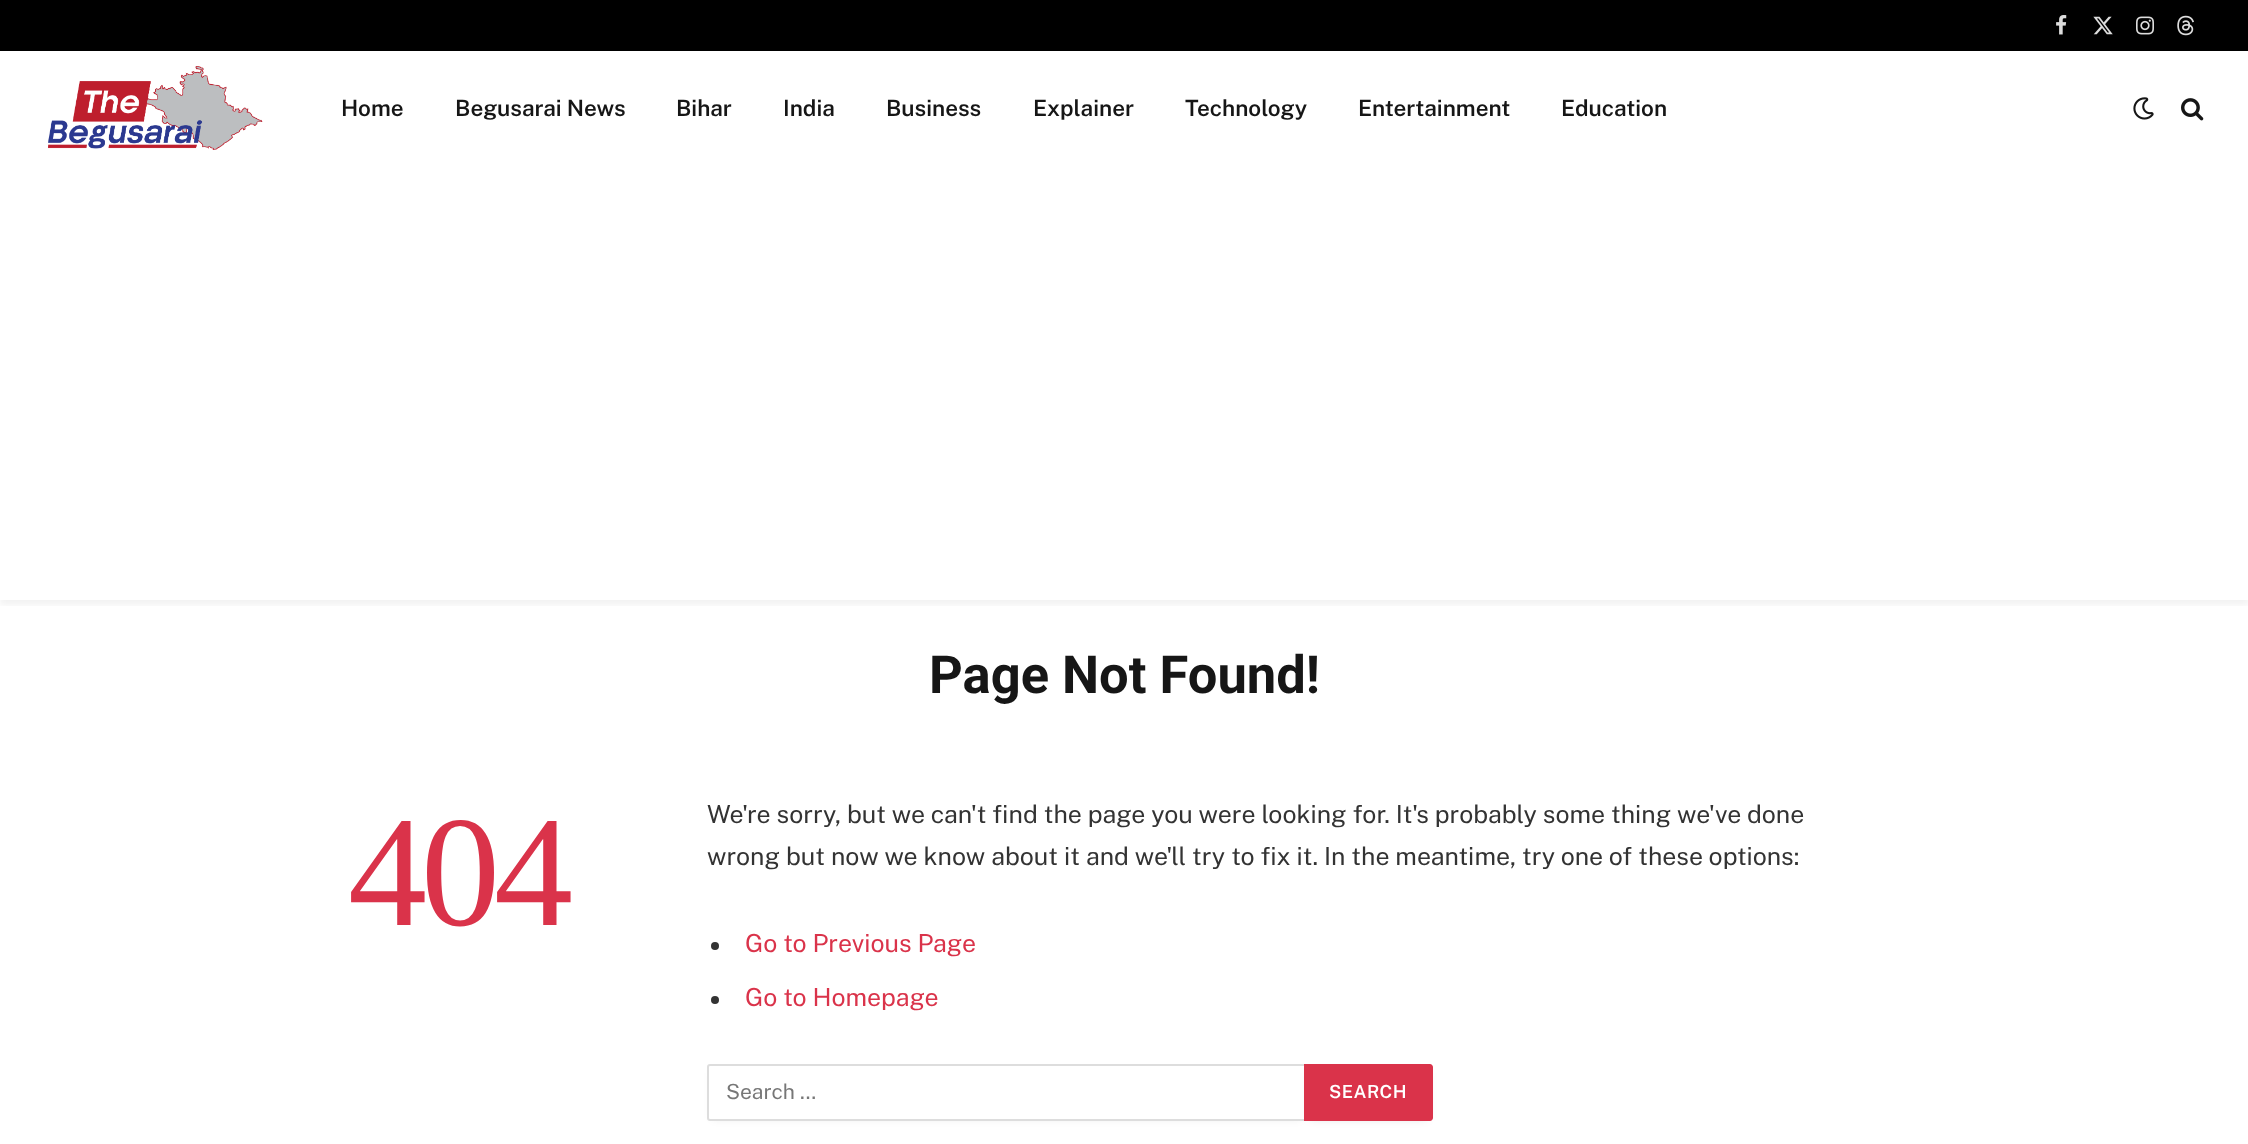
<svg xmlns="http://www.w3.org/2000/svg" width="2248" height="1144">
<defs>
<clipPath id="clip1"><rect x="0" y="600" width="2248" height="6"/></clipPath>
</defs>
<rect width="100%" height="100%" fill="#fff"/>
<g clip-path="url(#clip1)">
<rect y="5" width="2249" height="600" fill="#0000000d" filter="blur(3px)"/>
</g>
<rect width="2248" height="51" fill="#000"/>
<image x="2056" y="15" width="11" height="20" href="media/1.png"/>
<image x="2093" y="16" width="20" height="19" href="media/2.png"/>
<image x="2136" y="16" width="18" height="19" href="media/3.png"/>
<image x="2177" y="15" width="17" height="21" href="media/4.png"/>
<image x="48" y="66" width="215" height="84" href="media/5.png"/>
<text x="341" y="116" style="font-family:Public Sans;font-size:22.5px;font-weight:600;fill:#161616">Home</text>
<text x="455" y="116" style="font-family:Public Sans;font-size:22.5px;font-weight:600;fill:#161616">Begusarai News</text>
<text x="676" y="116" style="font-family:Public Sans;font-size:22.5px;font-weight:600;fill:#161616">Bihar</text>
<text x="783" y="116" style="font-family:Public Sans;font-size:22.5px;font-weight:600;fill:#161616">India</text>
<text x="886" y="116" style="font-family:Public Sans;font-size:22.5px;font-weight:600;fill:#161616">Business</text>
<text x="1033" y="116" style="font-family:Public Sans;font-size:22.5px;font-weight:600;fill:#161616">Explainer</text>
<text x="1185" y="116" style="font-family:Public Sans;font-size:22.5px;font-weight:600;fill:#161616">Technology</text>
<text x="1358" y="116" style="font-family:Public Sans;font-size:22.5px;font-weight:600;fill:#161616">Entertainment</text>
<text x="1561" y="116" style="font-family:Public Sans;font-size:22.5px;font-weight:600;fill:#161616">Education</text>
<image x="2133" y="97" width="21" height="23" href="media/6.png"/>
<image x="2181" y="98" width="23" height="23" href="media/7.png"/>
<text x="929" y="693" style="font-family:Roboto;font-size:52.5px;font-weight:bold;fill:#161616">Page Not Found!</text>
<text x="348" y="925" style="font-family:Liberation Serif;font-size:158px;letter-spacing:-6px;fill:#da334a">404</text>
<text x="707" y="823" style="font-family:Public Sans;font-size:24.9px;fill:#333">We're sorry, but we can't find the page you were looking for. It's probably some thing we've done</text>
<text x="707" y="865" style="font-family:Public Sans;font-size:24.9px;fill:#333">wrong but now we know about it and we'll try to fix it. In the meantime, try one of these options:</text>
<circle cx="715" cy="946" r="4" fill="#333"/>
<text x="745" y="952" style="font-family:Public Sans;font-size:24.9px;fill:#da334a">Go to Previous Page</text>
<circle cx="715" cy="1000" r="4" fill="#333"/>
<text x="745" y="1006" style="font-family:Public Sans;font-size:24.9px;fill:#da334a">Go to Homepage</text>
<rect x="713" y="1073" width="588" height="45" fill="#0000001a" filter="blur(5px)"/>
<rect x="708" y="1065" width="598" height="55" rx="2" fill="#fff" stroke="#ddd" stroke-width="2"/>
<text x="726" y="1099" style="font-family:Public Sans;font-size:21px;fill:#777">Search …</text>
<rect x="1310" y="1073" width="117" height="45" fill="#00000029" filter="blur(5px)"/>
<path d="M1304 1064h126c1.5 0 3 1.5 3 3v51c0 1.5-1.5 3-3 3h-126z" fill="#da334a"/>
<text x="1329" y="1098" style="font-family:Public Sans;font-size:18px;font-weight:600;letter-spacing:0.5px;fill:#fff">SEARCH</text>
</svg>
